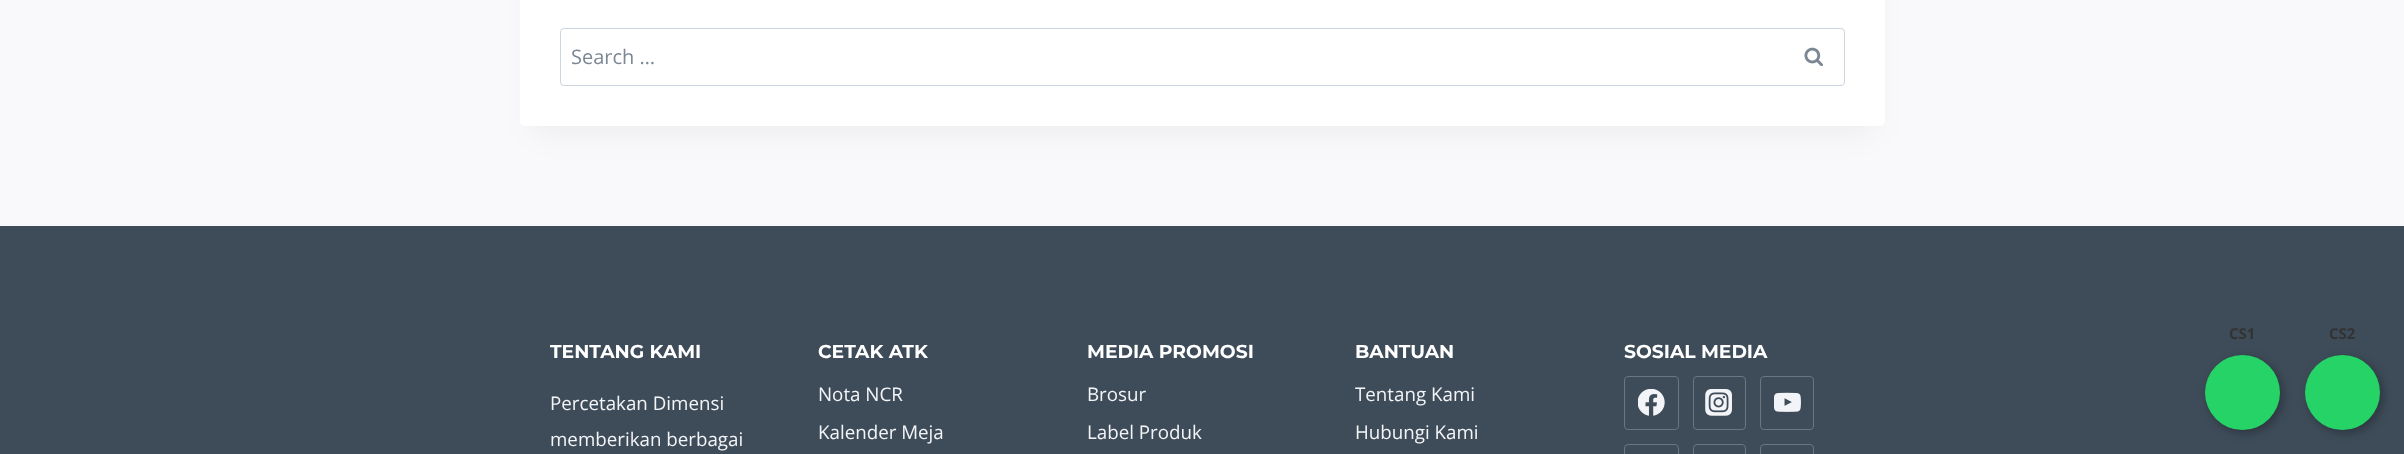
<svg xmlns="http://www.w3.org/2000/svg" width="2404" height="454">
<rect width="100%" height="100%" fill="#f9f9fb"/>
<rect x="533" y="-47" width="1340" height="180" fill="#0000000d" filter="blur(15.5px)"/>
<rect x="520" y="-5" width="1365" height="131" rx="5" fill="#fff"/>
<rect x="560.5" y="28.5" width="1284" height="57" rx="3.5" fill="none" stroke="#cbd5e0"/>
<text x="571" y="64" style="font-family:Open Sans;font-size:20px;fill:#7b8794">Search …</text>
<image x="1804" y="47" width="19" height="19" href="media/1.png"/>
<rect y="226" width="2404" height="228" fill="#3e4c59"/>
<text x="550" y="358" style="font-family:Montserrat;font-size:18.75px;font-weight:bold;fill:#fff">TENTANG KAMI</text>
<text x="550" y="410" style="font-family:Open Sans;font-size:18.75px;fill:#f3f4f7">Percetakan Dimensi</text>
<text x="550" y="446" style="font-family:Open Sans;font-size:18.75px;fill:#f3f4f7">memberikan berbagai</text>
<text x="818" y="358" style="font-family:Montserrat;font-size:18.75px;font-weight:bold;fill:#fff">CETAK ATK</text>
<text x="818" y="401" style="font-family:Open Sans;font-size:18.75px;fill:#f3f4f7">Nota NCR</text>
<text x="818" y="439" style="font-family:Open Sans;font-size:18.75px;fill:#f3f4f7">Kalender Meja</text>
<text x="1087" y="358" style="font-family:Montserrat;font-size:18.75px;font-weight:bold;fill:#fff">MEDIA PROMOSI</text>
<text x="1087" y="401" style="font-family:Open Sans;font-size:18.75px;fill:#f3f4f7">Brosur</text>
<text x="1087" y="439" style="font-family:Open Sans;font-size:18.75px;fill:#f3f4f7">Label Produk</text>
<text x="1355" y="358" style="font-family:Montserrat;font-size:18.75px;font-weight:bold;fill:#fff">BANTUAN</text>
<text x="1355" y="401" style="font-family:Open Sans;font-size:18.75px;fill:#f3f4f7">Tentang Kami</text>
<text x="1355" y="439" style="font-family:Open Sans;font-size:18.75px;fill:#f3f4f7">Hubungi Kami</text>
<text x="1624" y="358" style="font-family:Montserrat;font-size:18.75px;font-weight:bold;fill:#fff">SOSIAL MEDIA</text>
<rect x="1624.5" y="376.5" width="54" height="53" rx="3.5" fill="none" stroke="#6a7681"/>
<image x="1638" y="389" width="27" height="27" href="media/2.png"/>
<rect x="1693.5" y="376.5" width="52" height="53" rx="3.5" fill="none" stroke="#6a7681"/>
<image x="1705" y="389" width="27" height="27" href="media/3.png"/>
<rect x="1760.5" y="376.5" width="53" height="53" rx="3.5" fill="none" stroke="#6a7681"/>
<image x="1774" y="392" width="27" height="20" href="media/4.png"/>
<rect x="1624.5" y="444.5" width="54" height="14" rx="3.5" fill="none" stroke="#6a7681"/>
<rect x="1693.5" y="444.5" width="52" height="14" rx="3.5" fill="none" stroke="#6a7681"/>
<rect x="1760.5" y="444.5" width="53" height="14" rx="3.5" fill="none" stroke="#6a7681"/>
<text x="2229" y="339" style="font-family:Open Sans;font-size:15px;font-weight:bold;fill:#333">CS1</text>
<text x="2329" y="339" style="font-family:Open Sans;font-size:15px;font-weight:bold;fill:#333">CS2</text>
<rect x="2208" y="358" width="75" height="75" rx="37.5" fill="#0000004d" filter="blur(5px)"/>
<circle cx="2242.5" cy="392.5" r="37.5" fill="#25d366"/>
<rect x="2308" y="358" width="75" height="75" rx="37.5" fill="#0000004d" filter="blur(5px)"/>
<circle cx="2342.5" cy="392.5" r="37.5" fill="#25d366"/>
</svg>
